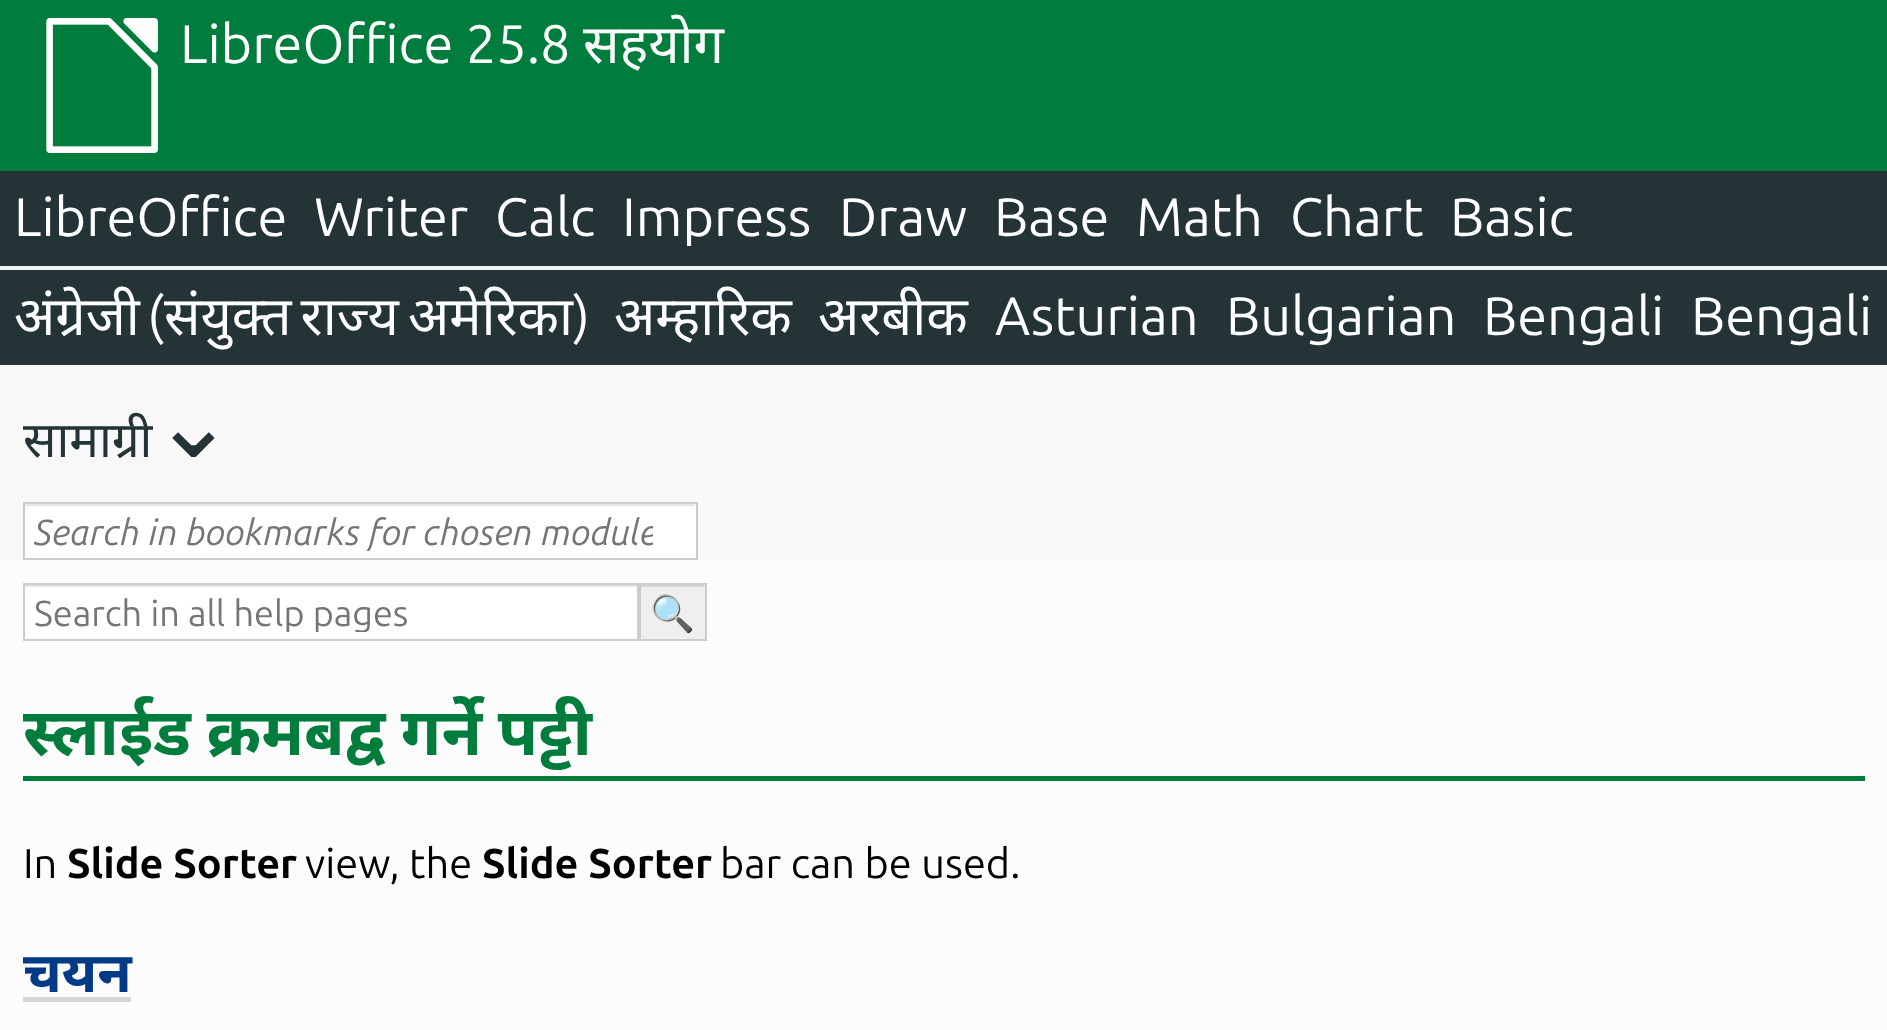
<svg xmlns="http://www.w3.org/2000/svg" width="1887" height="1030">
<defs>
<clipPath id="clip1"><rect x="34" y="511" width="619" height="40"/></clipPath>
<clipPath id="clip2"><rect x="34" y="592" width="560" height="40"/></clipPath>
</defs>
<rect width="100%" height="100%" fill="#f7f8f7"/>
<rect width="1887" height="171" fill="#007c3c"/>
<image x="46" y="18" width="112" height="135" href="media/1.png"/>
<text x="180" y="63" style="font-family:Ubuntu;font-size:54px;fill:#fff">LibreOffice 25.8</text>
<text x="583" y="63" style="font-family:Noto Sans;font-size:54px;fill:#fff">सहयोग</text>
<rect y="171" width="1887" height="95" fill="#233336"/>
<rect y="266" width="1887" height="4" fill="#f3f3f3"/>
<text x="14" y="236" style="font-family:Ubuntu;font-size:54px;fill:#fff">LibreOffice</text>
<text x="314" y="236" style="font-family:Ubuntu;font-size:54px;fill:#fff">Writer</text>
<text x="495" y="236" style="font-family:Ubuntu;font-size:54px;fill:#fff">Calc</text>
<text x="622" y="236" style="font-family:Ubuntu;font-size:54px;fill:#fff">Impress</text>
<text x="839" y="236" style="font-family:Ubuntu;font-size:54px;fill:#fff">Draw</text>
<text x="994" y="236" style="font-family:Ubuntu;font-size:54px;fill:#fff">Base</text>
<text x="1136" y="236" style="font-family:Ubuntu;font-size:54px;fill:#fff">Math</text>
<text x="1290" y="236" style="font-family:Ubuntu;font-size:54px;fill:#fff">Chart</text>
<text x="1450" y="236" style="font-family:Ubuntu;font-size:54px;fill:#fff">Basic</text>
<rect y="270" width="1887" height="95" fill="#233336"/>
<text x="14" y="335" style="font-family:Noto Sans;font-size:54px;fill:#fff">अंग्रेजी</text>
<text x="147" y="335" style="font-family:Ubuntu;font-size:54px;fill:#fff">(</text>
<text x="164" y="335" word-spacing="-5" style="font-family:Noto Sans;font-size:54px;fill:#fff">संयुक्त राज्य अमेरिका</text>
<text x="573" y="335" style="font-family:Ubuntu;font-size:54px;fill:#fff">)</text>
<text x="614" y="335" style="font-family:Noto Sans;font-size:54px;fill:#fff">अम्हारिक</text>
<text x="818" y="335" style="font-family:Noto Sans;font-size:54px;fill:#fff">अरबीक</text>
<text x="995" y="335" style="font-family:Ubuntu;font-size:54px;fill:#fff">Asturian</text>
<text x="1226" y="335" style="font-family:Ubuntu;font-size:54px;fill:#fff">Bulgarian</text>
<text x="1483" y="335" style="font-family:Ubuntu;font-size:54px;fill:#fff">Bengali</text>
<text x="1691" y="335" style="font-family:Ubuntu;font-size:54px;fill:#fff">Bengali</text>
<text x="23" y="457" style="font-family:Noto Sans;font-size:49.5px;fill:#233336">सामाग्री</text>
<text x="152" y="457" style="font-family:DejaVu Sans;font-size:99px;fill:#233336">⌄</text>
<rect x="25" y="504" width="671" height="54" fill="#fff"/>
<rect x="25" y="504" width="670" height="2" fill="#e6e6e6"/>
<rect x="24" y="503" width="673" height="56" fill="none" stroke="#ccc" stroke-width="2"/>
<g clip-path="url(#clip1)">
<text x="34" y="545" style="font-family:Ubuntu;font-size:36px;font-style:italic;fill:#757575">Search in bookmarks for chosen module</text>
</g>
<rect y="560" width="1887" height="470" fill="#fcfcfc"/>
<rect x="25" y="587" width="612" height="52" fill="#fff"/>
<rect x="25" y="585" width="612" height="2" fill="#e6e6e6"/>
<rect x="24" y="584" width="614" height="56" fill="none" stroke="#ccc" stroke-width="2"/>
<g clip-path="url(#clip2)">
<text x="34" y="626" style="font-family:Ubuntu;font-size:36px;fill:#757575">Search in all help pages</text>
</g>
<rect x="641" y="585" width="64" height="54" fill="#efefef"/>
<rect x="641" y="585" width="63" height="2" fill="#d7d7d7"/>
<rect x="640" y="584" width="66" height="56" fill="none" stroke="#ccc" stroke-width="2"/>
<text x="650" y="626" style="font-family:Noto Color Emoji;font-size:36px;fill:#000">🔍</text>
<rect x="23" y="776" width="1842" height="5" fill="#007c3c"/>
<text x="23" y="755" word-spacing="-1.5" style="font-family:Noto Sans;font-size:65.9px;font-weight:bold;fill:#007c3c">स्लाईड क्रमबद्व गर्ने पट्टी</text>
<text x="23" y="878" style="font-family:Ubuntu;font-size:41.5px;fill:#000">In</text>
<text x="67" y="878" style="font-family:Ubuntu;font-size:41.5px;font-weight:bold;fill:#000">Slide Sorter</text>
<text x="305" y="878" style="font-family:Ubuntu;font-size:41.5px;fill:#000">view, the</text>
<text x="482" y="878" style="font-family:Ubuntu;font-size:41.5px;font-weight:bold;fill:#000">Slide Sorter</text>
<text x="720" y="878" style="font-family:Ubuntu;font-size:41.5px;fill:#000">bar can be used.</text>
<text x="23" y="992" style="font-family:Noto Sans;font-size:56px;font-weight:bold;fill:#023a86">चयन</text>
<rect x="23" y="997" width="108" height="5" fill="#d6d6d6"/>
</svg>
